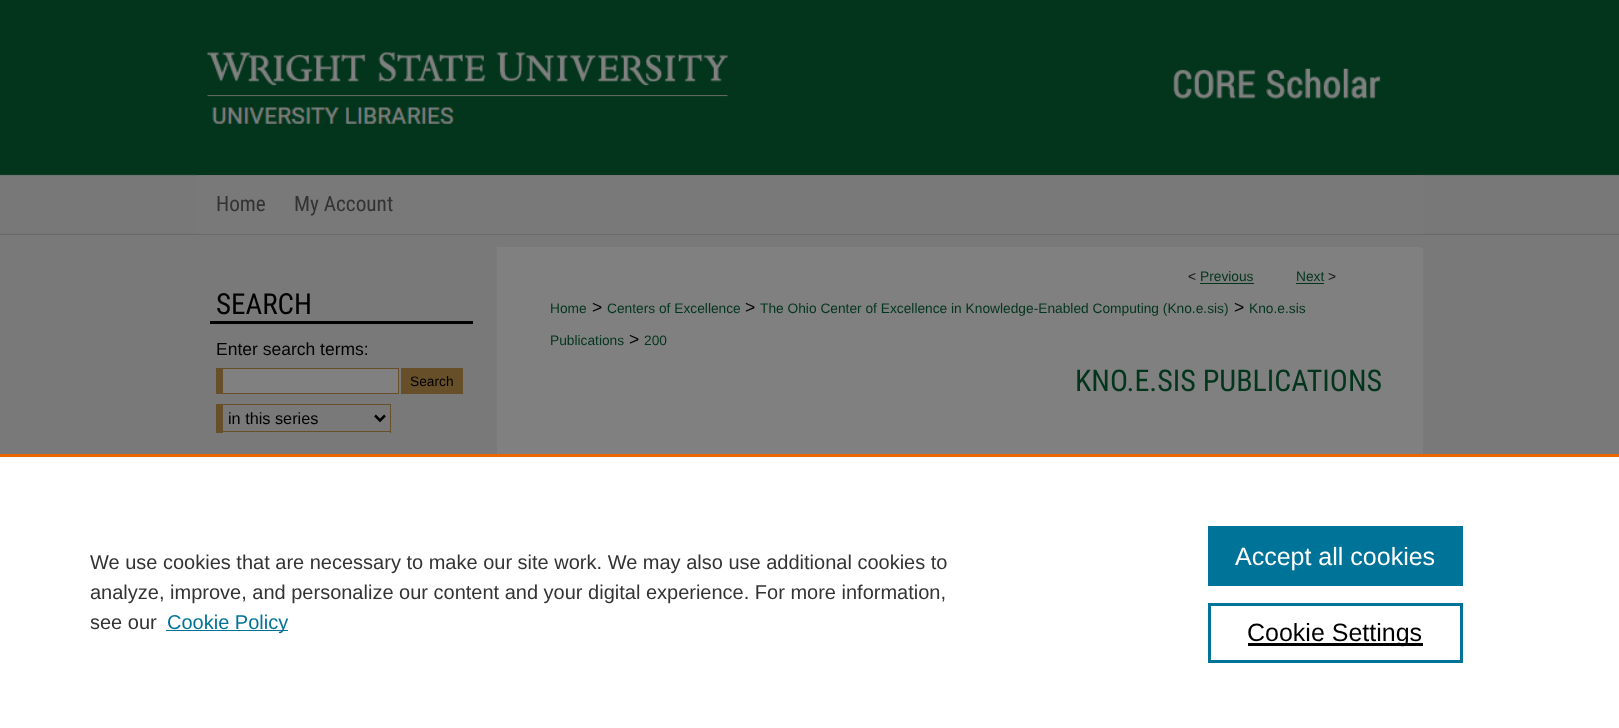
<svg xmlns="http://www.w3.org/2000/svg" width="1619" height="728">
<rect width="100%" height="100%" fill="#797979"/>
<image x="0" y="0" width="1619" height="235" href="media/1.png"/>
<rect x="198" y="174" width="1225" height="1" fill="#02351c"/>
<image x="197" y="52" width="1184" height="123" href="media/2.png"/>
<rect x="207" y="94" width="521" height="1" fill="#02351c"/>
<rect x="207" y="96" width="521" height="1" fill="#02351cbf"/>
<rect x="198" y="175" width="1225" height="59" fill="#797979"/>
<text x="216" y="211" style="font-family:Roboto Condensed;font-size:21.25px;fill:#333">Home</text>
<text x="294" y="211" style="font-family:Roboto Condensed;font-size:21.25px;fill:#333">My Account</text>
<rect x="497" y="247" width="924" height="207" fill="#808080"/>
<rect x="210" y="321" width="263" height="3" fill="#000"/>
<text x="216" y="314" style="font-family:Roboto Condensed;font-size:29px;fill:#000">SEARCH</text>
<text x="216" y="355" style="font-family:Liberation Sans;font-size:17.5px;fill:#000">Enter search terms:</text>
<rect x="223" y="369" width="175" height="24" fill="#808080"/>
<rect x="216" y="368" width="183" height="1" fill="#675029"/>
<rect x="398" y="368" width="1" height="26" fill="#675029"/>
<rect x="216" y="393" width="183" height="1" fill="#675029"/>
<rect x="216" y="368" width="7" height="26" fill="#675029"/>
<rect x="401" y="368" width="62" height="26" fill="#675029"/>
<text x="410" y="386" style="font-family:Liberation Sans;font-size:13.75px;fill:#000">Search</text>
<rect x="216" y="404" width="175" height="1" fill="#675029"/>
<rect x="390" y="404" width="1" height="29" fill="#675029"/>
<rect x="216" y="431" width="175" height="1" fill="#675029"/>
<rect x="216" y="404" width="7" height="29" fill="#675029"/>
<path d="M375 415.5l5 5l5-5" fill="none" stroke="#000" stroke-width="2.5"/>
<text x="228" y="424" style="font-family:Liberation Sans;font-size:16.25px;fill:#000">in this series</text>
<rect x="1421" y="248" width="2" height="206" fill="#808080"/>
<text x="1188" y="281" style="font-family:Liberation Sans;font-size:13.75px;fill:#111">&lt;</text>
<text x="1200" y="281" style="font-family:Liberation Sans;font-size:13.75px;fill:#02351c">Previous</text>
<rect x="1200" y="283" width="54" height="1" fill="#02351c"/>
<text x="1296" y="281" style="font-family:Liberation Sans;font-size:13.75px;fill:#02351c">Next</text>
<rect x="1296" y="283" width="28" height="1" fill="#02351c"/>
<text x="1328" y="281" style="font-family:Liberation Sans;font-size:13.75px;fill:#111">&gt;</text>
<text x="550" y="313" style="font-family:Liberation Sans;font-size:13.75px;fill:#02351c">Home</text>
<text x="592" y="313" style="font-family:Liberation Sans;font-size:17.5px;fill:#000">&gt;</text>
<text x="607" y="313" style="font-family:Liberation Sans;font-size:13.75px;fill:#02351c">Centers of Excellence</text>
<text x="745" y="313" style="font-family:Liberation Sans;font-size:17.5px;fill:#000">&gt;</text>
<text x="760" y="313" style="font-family:Liberation Sans;font-size:13.75px;fill:#02351c">The Ohio Center of Excellence in Knowledge-Enabled Computing (Kno.e.sis)</text>
<text x="1234" y="313" style="font-family:Liberation Sans;font-size:17.5px;fill:#000">&gt;</text>
<text x="1249" y="313" style="font-family:Liberation Sans;font-size:13.75px;fill:#02351c">Kno.e.sis</text>
<text x="550" y="345" style="font-family:Liberation Sans;font-size:13.75px;fill:#02351c">Publications</text>
<text x="629" y="345" style="font-family:Liberation Sans;font-size:17.5px;fill:#000">&gt;</text>
<text x="644" y="345" style="font-family:Liberation Sans;font-size:13.75px;fill:#02351c">200</text>
<text x="1075" y="391" style="font-family:Roboto Condensed;font-size:30px;fill:#02351c">KNO.E.SIS PUBLICATIONS</text>
<rect y="457" width="1619" height="271" fill="#fff"/>
<rect y="454" width="1619" height="3" fill="#eb6500"/>
<text x="90" y="569" style="font-family:Liberation Sans;font-size:20px;fill:#333">We use cookies that are necessary to make our site work. We may also use additional cookies to</text>
<text x="90" y="599" style="font-family:Liberation Sans;font-size:20px;fill:#333">analyze, improve, and personalize our content and your digital experience. For more information,</text>
<text x="90" y="629" style="font-family:Liberation Sans;font-size:20px;fill:#333">see our</text>
<rect x="166" y="630" width="122" height="1" fill="#007398"/>
<text x="167" y="629" style="font-family:Liberation Sans;font-size:20px;fill:#007398">Cookie Policy</text>
<rect x="1208" y="526" width="255" height="60" fill="#007398"/>
<text x="1235" y="565" style="font-family:Liberation Sans;font-size:25px;fill:#fff">Accept all cookies</text>
<rect x="1209.5" y="604.5" width="252" height="57" fill="none" stroke="#007398" stroke-width="3"/>
<rect x="1248" y="643" width="175" height="3" fill="#000"/>
<text x="1247" y="641" style="font-family:Liberation Sans;font-size:25px;fill:#000">Cookie Settings</text>
</svg>
